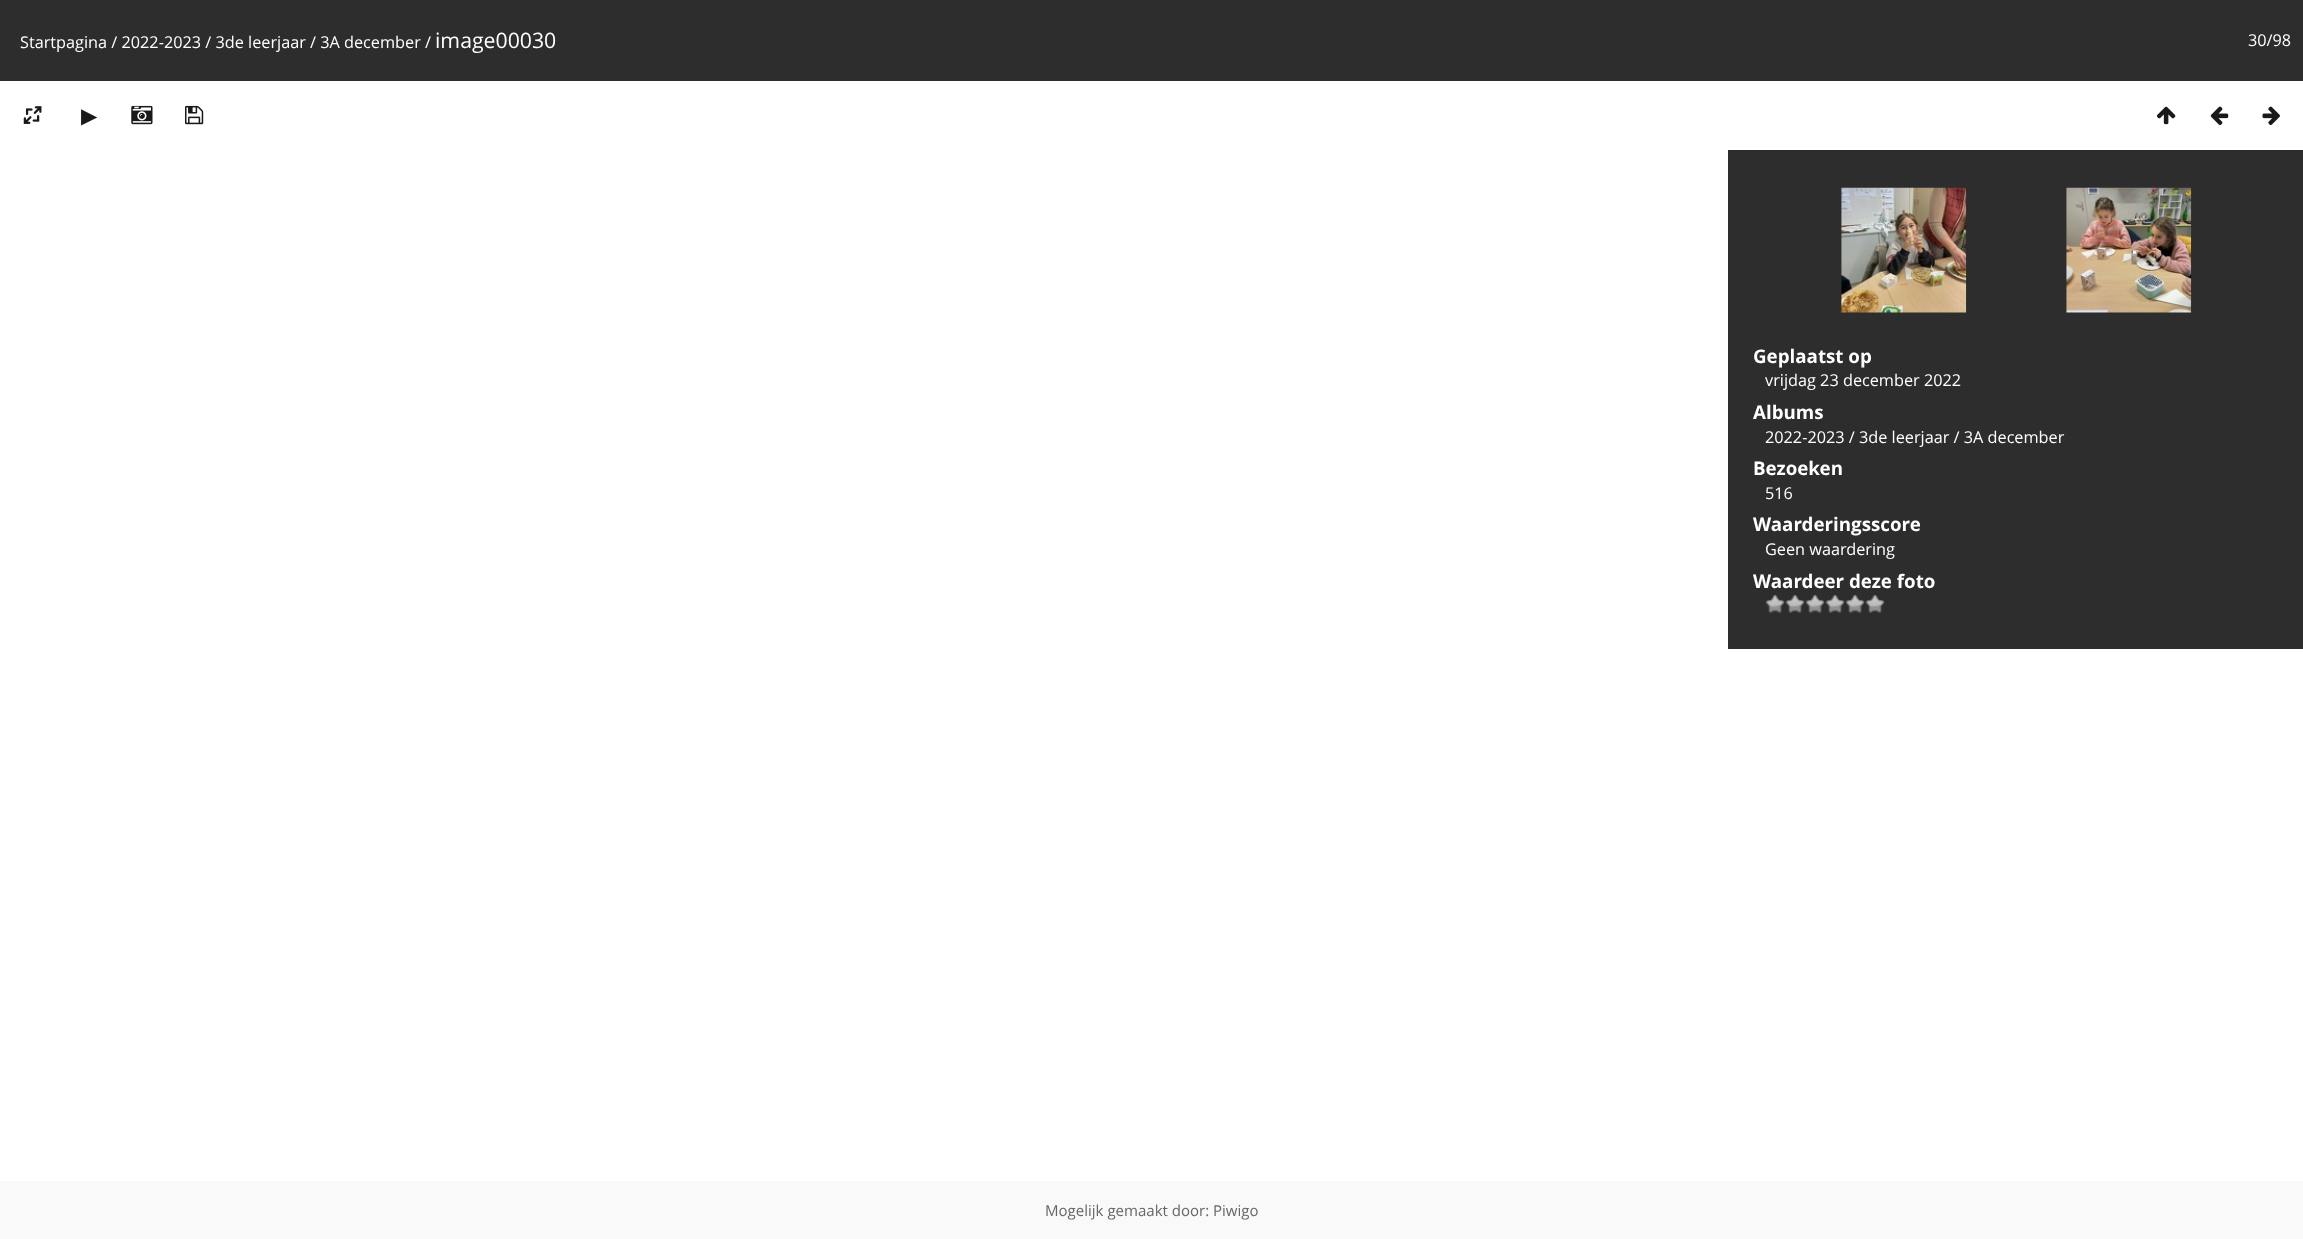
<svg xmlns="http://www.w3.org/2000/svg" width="2303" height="1239">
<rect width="100%" height="100%" fill="#fff"/>
<rect width="2303" height="81" fill="#2d2d2d"/>
<text x="20" y="48" style="font-family:Open Sans;font-size:16.25px;fill:#fff">Startpagina / 2022-2023 / 3de leerjaar / 3A december /</text>
<text x="435" y="48" style="font-family:Open Sans;font-size:21.25px;fill:#fff">image00030</text>
<text x="2248" y="46" style="font-family:Open Sans;font-size:16.25px;fill:#fff">30/98</text>
<image x="23" y="106" width="19" height="18" href="media/1.png"/>
<text x="81" y="123" style="font-family:DejaVu Sans;font-size:21.25px;fill:#1a1a1a">▶</text>
<image x="131" y="105" width="22" height="20" href="media/2.png"/>
<image x="185" y="105" width="19" height="20" href="media/3.png"/>
<image x="2156" y="106" width="20" height="19" href="media/4.png"/>
<image x="2210" y="106" width="19" height="19" href="media/5.png"/>
<image x="2262" y="106" width="18" height="19" href="media/6.png"/>
<rect x="1728" y="150" width="575" height="499" fill="#2d2d2d"/>
<image x="1841" y="187" width="126" height="126" href="media/7.png"/>
<image x="2066" y="187" width="126" height="126" href="media/8.png"/>
<text x="1753" y="363" style="font-family:Open Sans;font-size:18.75px;font-weight:bold;fill:#fff">Geplaatst op</text>
<text x="1765" y="386" style="font-family:Open Sans;font-size:16.25px;fill:#fff">vrijdag 23 december 2022</text>
<text x="1753" y="419" style="font-family:Open Sans;font-size:18.75px;font-weight:bold;fill:#fff">Albums</text>
<text x="1765" y="443" style="font-family:Open Sans;font-size:16.25px;fill:#fff">2022-2023 / 3de leerjaar / 3A december</text>
<text x="1753" y="475" style="font-family:Open Sans;font-size:18.75px;font-weight:bold;fill:#fff">Bezoeken</text>
<text x="1765" y="499" style="font-family:Open Sans;font-size:16.25px;fill:#fff">516</text>
<text x="1753" y="531" style="font-family:Open Sans;font-size:18.75px;font-weight:bold;fill:#fff">Waarderingsscore</text>
<text x="1765" y="555" style="font-family:Open Sans;font-size:16.25px;fill:#fff">Geen waardering</text>
<text x="1753" y="588" style="font-family:Open Sans;font-size:18.75px;font-weight:bold;fill:#fff">Waardeer deze foto</text>
<image x="1765" y="595" width="20" height="18" href="media/9.png"/>
<image x="1785" y="595" width="20" height="18" href="media/10.png"/>
<image x="1805" y="595" width="20" height="18" href="media/11.png"/>
<image x="1825" y="595" width="20" height="18" href="media/11.png"/>
<image x="1845" y="595" width="20" height="18" href="media/11.png"/>
<image x="1865" y="595" width="20" height="18" href="media/10.png"/>
<rect y="1181" width="2303" height="58" fill="#f9f9f9"/>
<text x="1045" y="1216" style="font-family:Open Sans;font-size:15px;fill:#666">Mogelijk gemaakt door: Piwigo</text>
</svg>
